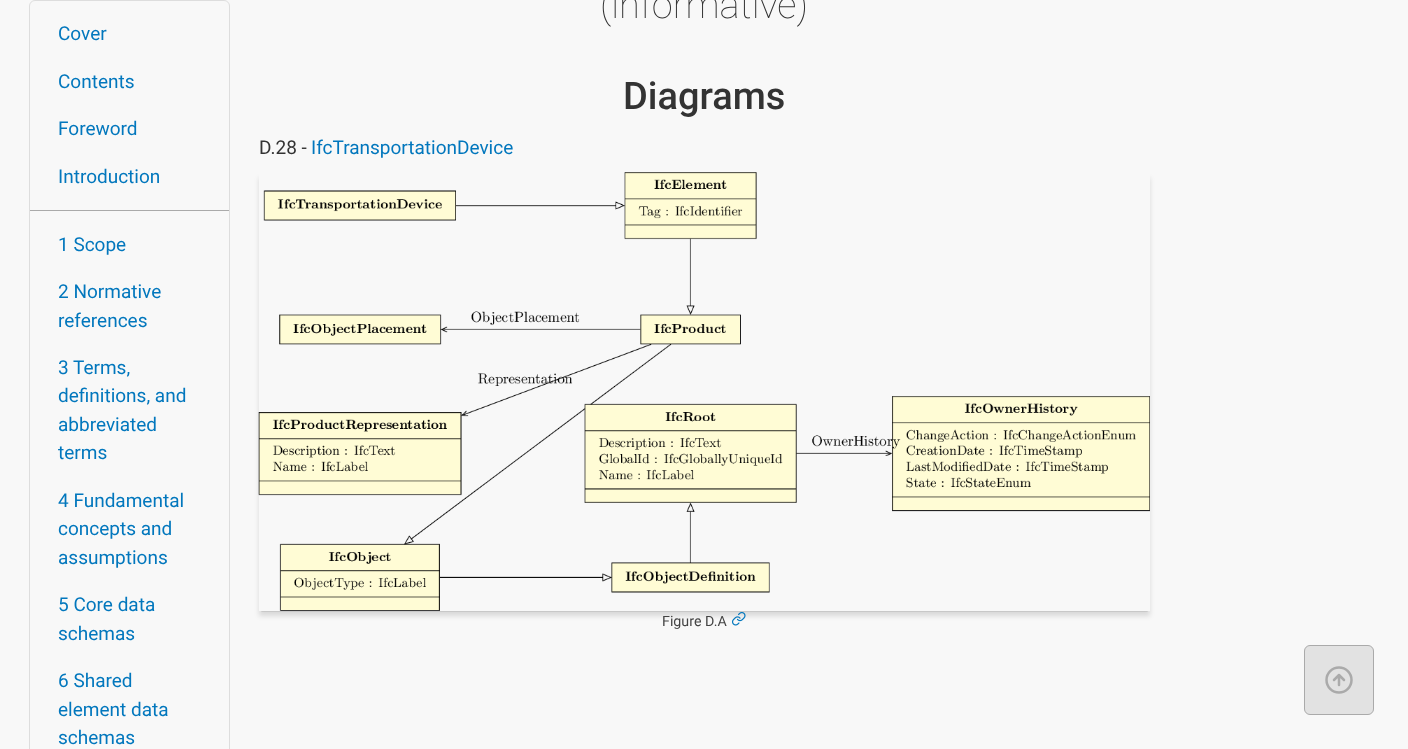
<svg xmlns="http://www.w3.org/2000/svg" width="1408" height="749">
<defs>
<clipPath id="clip1"><path d="M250 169h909v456h-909zm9 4h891v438h-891z" clip-rule="evenodd"/></clipPath>
<clipPath id="clip2"><rect x="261" y="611" width="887" height="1"/></clipPath>
</defs>
<rect width="100%" height="100%" fill="#f8f8f8"/>
<rect x="29.5" y="0.5" width="200" height="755" rx="5.5" fill="none" stroke="#ddd"/>
<rect x="30" y="210" width="199" height="1" fill="#aaa"/>
<text x="58" y="40" style="font-family:Roboto;font-size:19px;fill:#0277bd">Cover</text>
<text x="58" y="88" style="font-family:Roboto;font-size:19px;fill:#0277bd">Contents</text>
<text x="58" y="135" style="font-family:Roboto;font-size:19px;fill:#0277bd">Foreword</text>
<text x="58" y="183" style="font-family:Roboto;font-size:19px;fill:#0277bd">Introduction</text>
<text x="58" y="251" style="font-family:Roboto;font-size:19px;fill:#0277bd">1 Scope</text>
<text x="58" y="298" style="font-family:Roboto;font-size:19px;fill:#0277bd">2 Normative</text>
<text x="58" y="327" style="font-family:Roboto;font-size:19px;fill:#0277bd">references</text>
<text x="58" y="374" style="font-family:Roboto;font-size:19px;fill:#0277bd">3 Terms,</text>
<text x="58" y="402" style="font-family:Roboto;font-size:19px;fill:#0277bd">definitions, and</text>
<text x="58" y="431" style="font-family:Roboto;font-size:19px;fill:#0277bd">abbreviated</text>
<text x="58" y="459" style="font-family:Roboto;font-size:19px;fill:#0277bd">terms</text>
<text x="58" y="507" style="font-family:Roboto;font-size:19px;fill:#0277bd">4 Fundamental</text>
<text x="58" y="535" style="font-family:Roboto;font-size:19px;fill:#0277bd">concepts and</text>
<text x="58" y="564" style="font-family:Roboto;font-size:19px;fill:#0277bd">assumptions</text>
<text x="58" y="611" style="font-family:Roboto;font-size:19px;fill:#0277bd">5 Core data</text>
<text x="58" y="640" style="font-family:Roboto;font-size:19px;fill:#0277bd">schemas</text>
<text x="58" y="687" style="font-family:Roboto;font-size:19px;fill:#0277bd">6 Shared</text>
<text x="58" y="716" style="font-family:Roboto;font-size:19px;fill:#0277bd">element data</text>
<text x="58" y="744" style="font-family:Roboto;font-size:19px;fill:#0277bd">schemas</text>
<text x="600" y="18" style="font-family:Roboto;font-size:38px;font-weight:100;fill:#333">(informative)</text>
<text x="623" y="109" style="font-family:Roboto;font-size:38px;font-weight:500;fill:#333">Diagrams</text>
<text x="259" y="154" style="font-family:Roboto;font-size:19px;fill:#333">D.28 -</text>
<text x="311" y="154" style="font-family:Roboto;font-size:19px;fill:#0277bd">IfcTransportationDevice</text>
<g clip-path="url(#clip1)">
<rect x="259" y="178" width="891" height="438" fill="#0000001f" filter="blur(2.5px)"/>
</g>
<g clip-path="url(#clip2)">
<rect x="261" y="178" width="887" height="433" fill="#00000040" filter="blur(1px)"/>
</g>
<image x="258" y="172" width="892" height="439" href="media/1.png"/>
<text x="662" y="626" style="font-family:Roboto;font-size:14.25px;fill:#444">Figure D.A</text>
<image x="732" y="612" width="14" height="14" href="media/2.png"/>
<rect x="1304.5" y="645.5" width="69" height="69" rx="5.5" fill="#e2e2e2" stroke="#aaa"/>
<circle cx="1339" cy="680" r="12.5" fill="none" stroke="#aaa" stroke-width="2.5"/>
<path d="M1344 680l-5-5l-5 5m5 5v-10" fill="none" stroke="#aaa" stroke-width="2.5" stroke-linecap="round" stroke-linejoin="round"/>
</svg>
